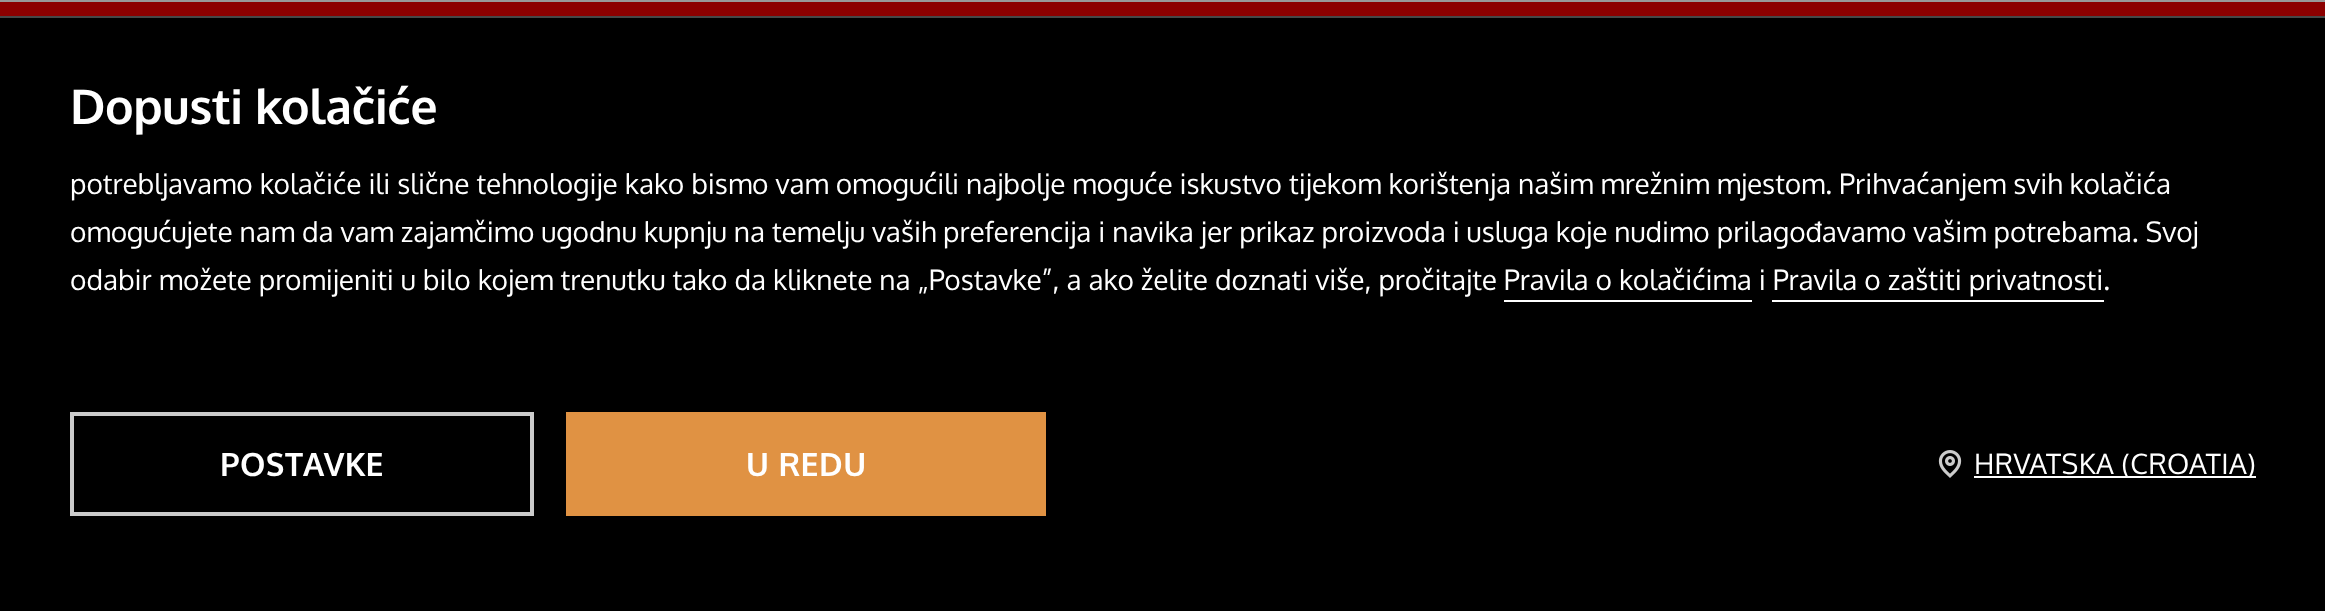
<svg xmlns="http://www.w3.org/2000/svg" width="2325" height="611">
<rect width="100%" height="100%" fill="#999"/>
<rect y="2" width="2325" height="14" fill="#8c0000"/>
<rect y="18" width="2325" height="593" fill="#000"/>
<rect y="16" width="2325" height="2" fill="#474747"/>
<text x="70" y="124" style="font-family:Oxygen;font-size:48px;font-weight:bold;letter-spacing:-0.4px;fill:#fff">Dopusti kolačiće</text>
<text x="70" y="194" style="font-family:Oxygen;font-size:28px;fill:#fff">potrebljavamo kolačiće ili slične tehnologije kako bismo vam omogućili najbolje moguće iskustvo tijekom korištenja našim mrežnim mjestom. Prihvaćanjem svih kolačića</text>
<text x="70" y="242" style="font-family:Oxygen;font-size:28px;fill:#fff">omogućujete nam da vam zajamčimo ugodnu kupnju na temelju vaših preferencija i navika jer prikaz proizvoda i usluga koje nudimo prilagođavamo vašim potrebama. Svoj</text>
<text x="70" y="290" style="font-family:Oxygen;font-size:28px;fill:#fff">odabir možete promijeniti u bilo kojem trenutku tako da kliknete na „Postavke”, a ako želite doznati više, pročitajte Pravila o kolačićima i Pravila o zaštiti privatnosti.</text>
<rect x="1504" y="300" width="248" height="2" fill="#fff"/>
<rect x="1772" y="300" width="332" height="2" fill="#fff"/>
<rect x="72" y="414" width="460" height="100" fill="none" stroke="#ccc" stroke-width="4"/>
<text x="220" y="476" style="font-family:Oxygen;font-size:32px;font-weight:bold;letter-spacing:0.5px;fill:#fff">POSTAVKE</text>
<rect x="566" y="412" width="480" height="104" fill="#e09243"/>
<text x="746" y="476" style="font-family:Oxygen;font-size:32px;font-weight:bold;letter-spacing:0.5px;fill:#fff">U REDU</text>
<image x="1938" y="450" width="24" height="28" href="media/1.png"/>
<rect x="1974" y="476" width="282" height="2" fill="#fff"/>
<text x="1974" y="474" style="font-family:Oxygen;font-size:28px;letter-spacing:0.4px;fill:#fff">HRVATSKA (CROATIA)</text>
</svg>
